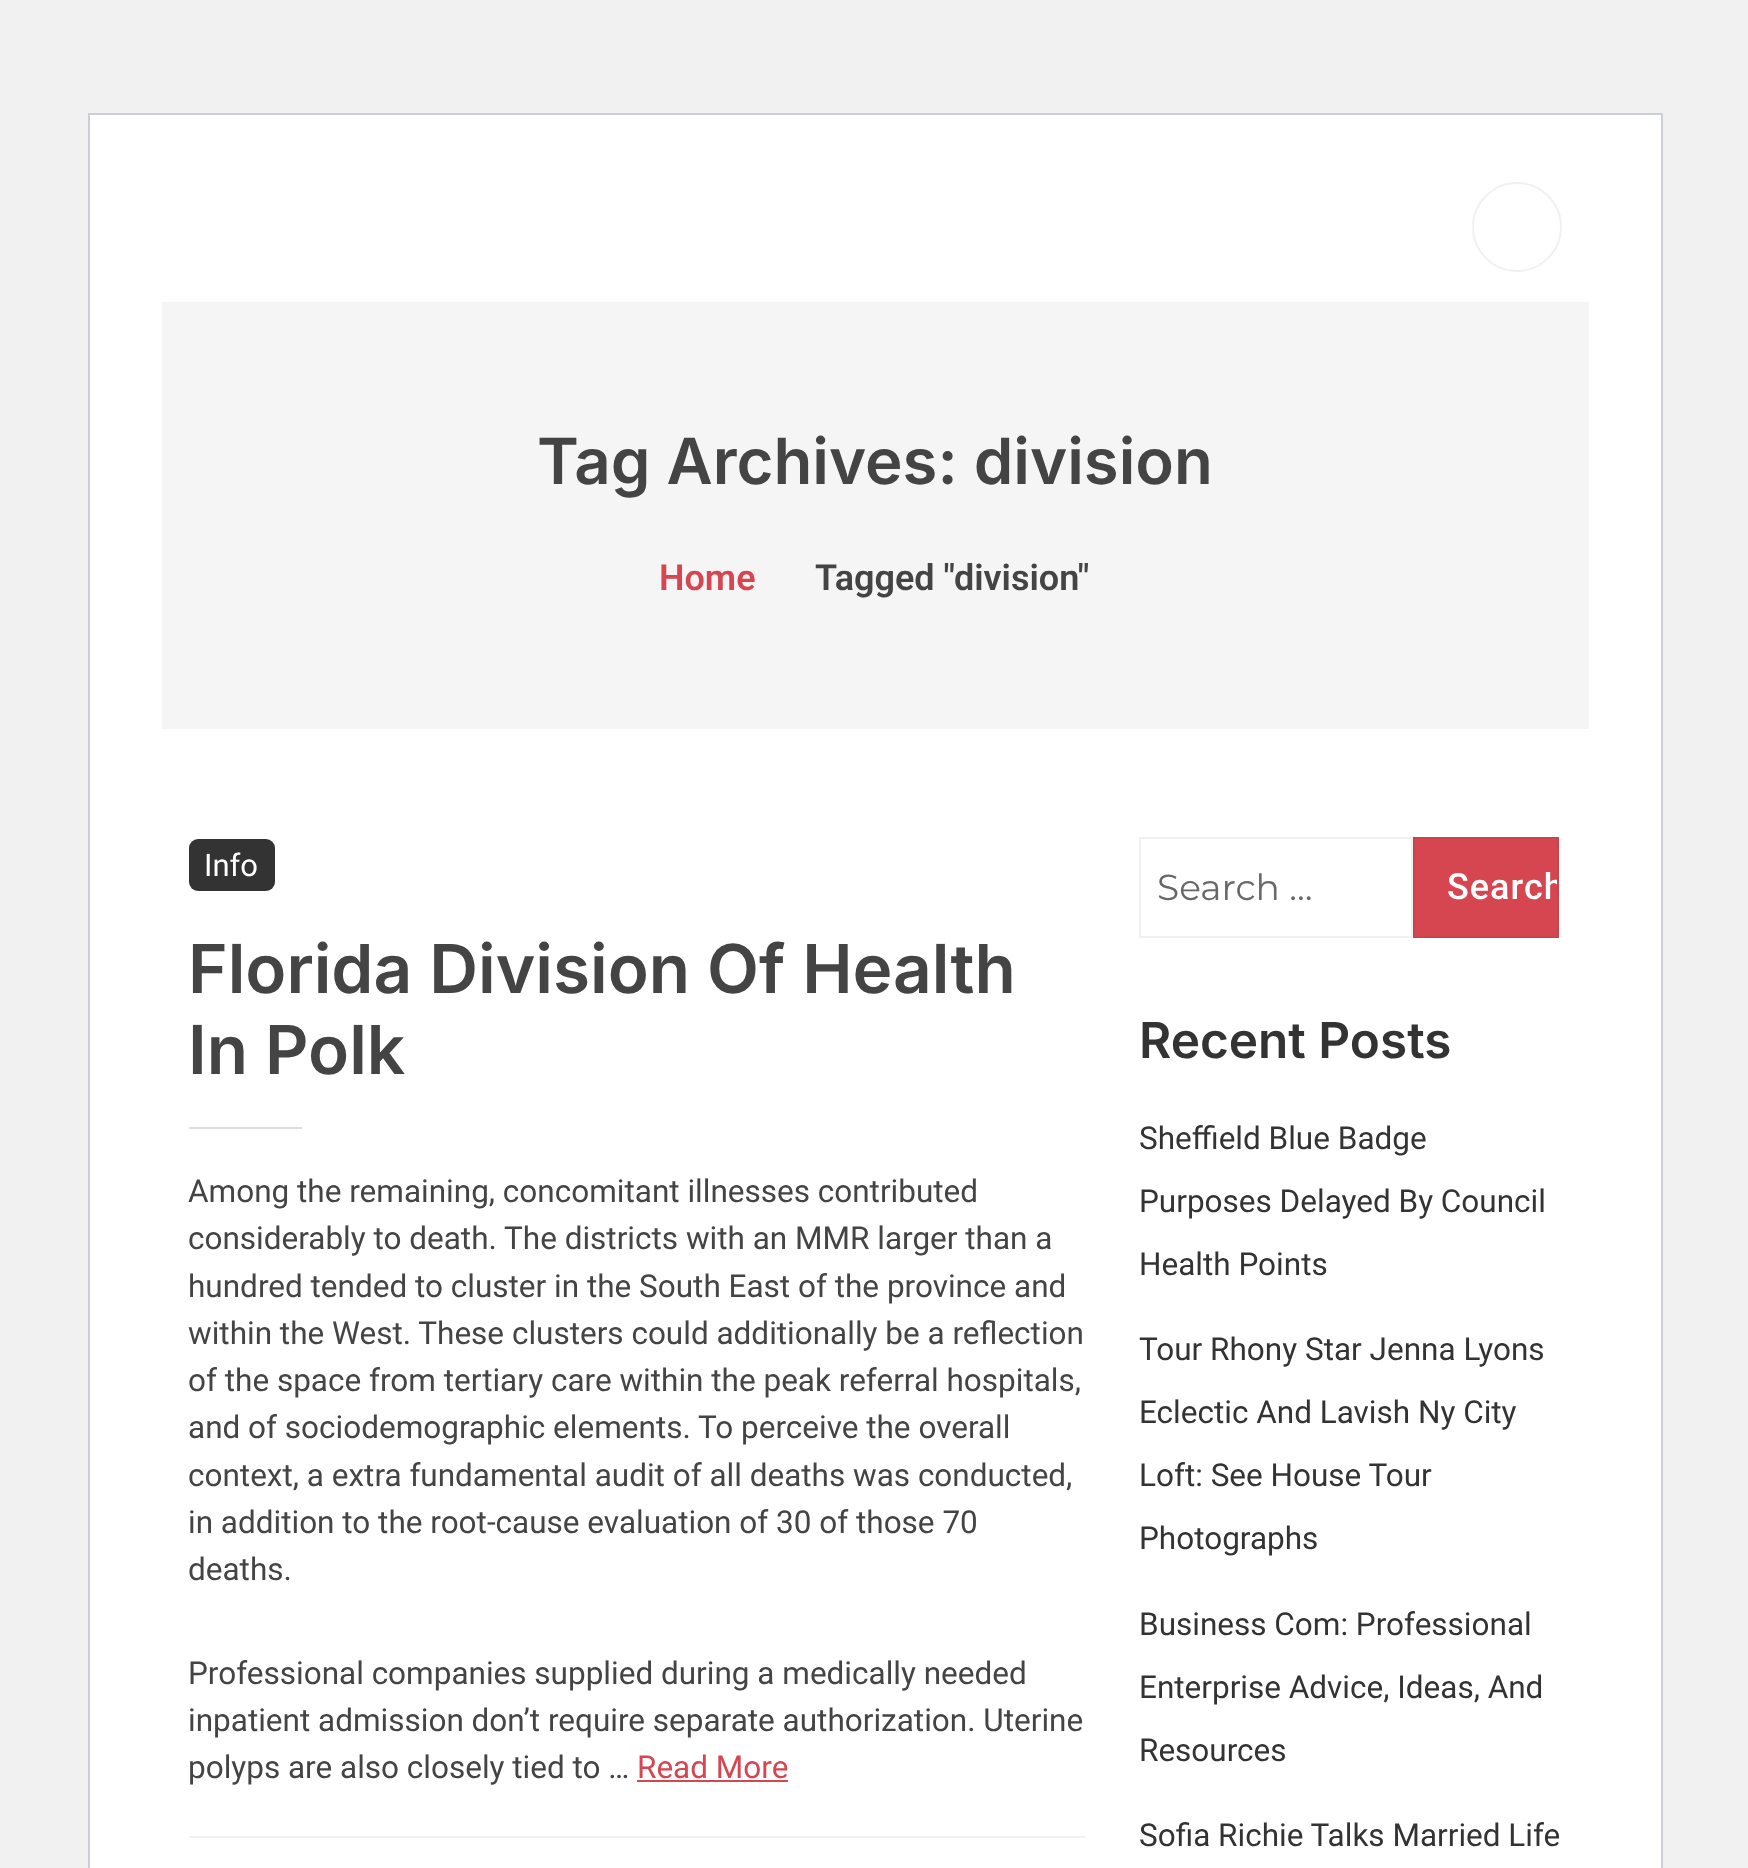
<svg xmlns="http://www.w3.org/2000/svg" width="1748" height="1868">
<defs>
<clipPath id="clip1"><rect x="1415" y="839" width="142" height="97"/></clipPath>
</defs>
<rect width="100%" height="100%" fill="#f1f1f1"/>
<rect x="89" y="114" width="1573" height="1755" fill="#fff" stroke="#ccd0d4" stroke-width="2"/>
<circle cx="1517" cy="227" r="44" fill="none" stroke="#f1f1f1" stroke-width="2"/>
<rect x="162" y="302" width="1427" height="427" fill="#f5f5f5"/>
<text x="537" y="484" style="font-family:Inter;font-size:63.5px;font-weight:600;fill:#444">Tag Archives: division</text>
<text x="659" y="590" style="font-family:Roboto;font-size:36px;font-weight:600;fill:#d64651">Home</text>
<text x="815" y="590" style="font-family:Roboto;font-size:36px;font-weight:600;fill:#444">Tagged "division"</text>
<rect x="189" y="839" width="86" height="52" rx="9" fill="#333"/>
<text x="204" y="876" style="font-family:Roboto;font-size:31px;fill:#fff">Info</text>
<text x="188" y="993" style="font-family:Inter;font-size:67.5px;font-weight:600;fill:#444">Florida Division Of Health</text>
<text x="188" y="1074" style="font-family:Inter;font-size:67.5px;font-weight:600;fill:#444">In Polk</text>
<rect x="189" y="1127" width="113" height="2" fill="#ddd"/>
<text x="188" y="1202" style="font-family:Roboto;font-size:31.5px;fill:#444">Among the remaining, concomitant illnesses contributed</text>
<text x="188" y="1249" style="font-family:Roboto;font-size:31.5px;fill:#444">considerably to death. The districts with an MMR larger than a</text>
<text x="188" y="1297" style="font-family:Roboto;font-size:31.5px;fill:#444">hundred tended to cluster in the South East of the province and</text>
<text x="188" y="1344" style="font-family:Roboto;font-size:31.5px;fill:#444">within the West. These clusters could additionally be a reflection</text>
<text x="188" y="1391" style="font-family:Roboto;font-size:31.5px;fill:#444">of the space from tertiary care within the peak referral hospitals,</text>
<text x="188" y="1438" style="font-family:Roboto;font-size:31.5px;fill:#444">and of sociodemographic elements. To perceive the overall</text>
<text x="188" y="1486" style="font-family:Roboto;font-size:31.5px;fill:#444">context, a extra fundamental audit of all deaths was conducted,</text>
<text x="188" y="1533" style="font-family:Roboto;font-size:31.5px;fill:#444">in addition to the root-cause evaluation of 30 of those 70</text>
<text x="188" y="1580" style="font-family:Roboto;font-size:31.5px;fill:#444">deaths.</text>
<text x="188" y="1684" style="font-family:Roboto;font-size:31.5px;fill:#444">Professional companies supplied during a medically needed</text>
<text x="188" y="1731" style="font-family:Roboto;font-size:31.5px;fill:#444">inpatient admission don’t require separate authorization. Uterine</text>
<text x="188" y="1778" style="font-family:Roboto;font-size:31.5px;fill:#444">polyps are also closely tied to …</text>
<text x="637" y="1778" style="font-family:Roboto;font-size:31.5px;fill:#d64651">Read More</text>
<rect x="637" y="1780" width="151" height="2" fill="#d64651"/>
<rect x="189" y="1836" width="896" height="2" fill="#f1f1f1"/>
<rect x="1140" y="838" width="272" height="99" fill="none" stroke="#f1f1f1" stroke-width="2"/>
<text x="1157" y="900" style="font-family:Montserrat;font-size:36px;fill:#686868">Search …</text>
<rect x="1414" y="838" width="144" height="99" fill="#d64651" stroke="#cb434d" stroke-width="2"/>
<g clip-path="url(#clip1)">
<text x="1447" y="899" style="font-family:Roboto;font-size:36px;font-weight:500;letter-spacing:1px;fill:#fff">Search</text>
</g>
<text x="1139" y="1058" style="font-family:Inter;font-size:49.5px;font-weight:600;fill:#333">Recent Posts</text>
<text x="1139" y="1149" style="font-family:Roboto;font-size:31.5px;fill:#333">Sheffield Blue Badge</text>
<text x="1139" y="1212" style="font-family:Roboto;font-size:31.5px;fill:#333">Purposes Delayed By Council</text>
<text x="1139" y="1275" style="font-family:Roboto;font-size:31.5px;fill:#333">Health Points</text>
<text x="1139" y="1360" style="font-family:Roboto;font-size:31.5px;fill:#333">Tour Rhony Star Jenna Lyons</text>
<text x="1139" y="1423" style="font-family:Roboto;font-size:31.5px;fill:#333">Eclectic And Lavish Ny City</text>
<text x="1139" y="1486" style="font-family:Roboto;font-size:31.5px;fill:#333">Loft: See House Tour</text>
<text x="1139" y="1549" style="font-family:Roboto;font-size:31.5px;fill:#333">Photographs</text>
<text x="1139" y="1635" style="font-family:Roboto;font-size:31.5px;fill:#333">Business Com: Professional</text>
<text x="1139" y="1698" style="font-family:Roboto;font-size:31.5px;fill:#333">Enterprise Advice, Ideas, And</text>
<text x="1139" y="1761" style="font-family:Roboto;font-size:31.5px;fill:#333">Resources</text>
<text x="1139" y="1846" style="font-family:Roboto;font-size:31.5px;fill:#333">Sofia Richie Talks Married Life</text>
</svg>
